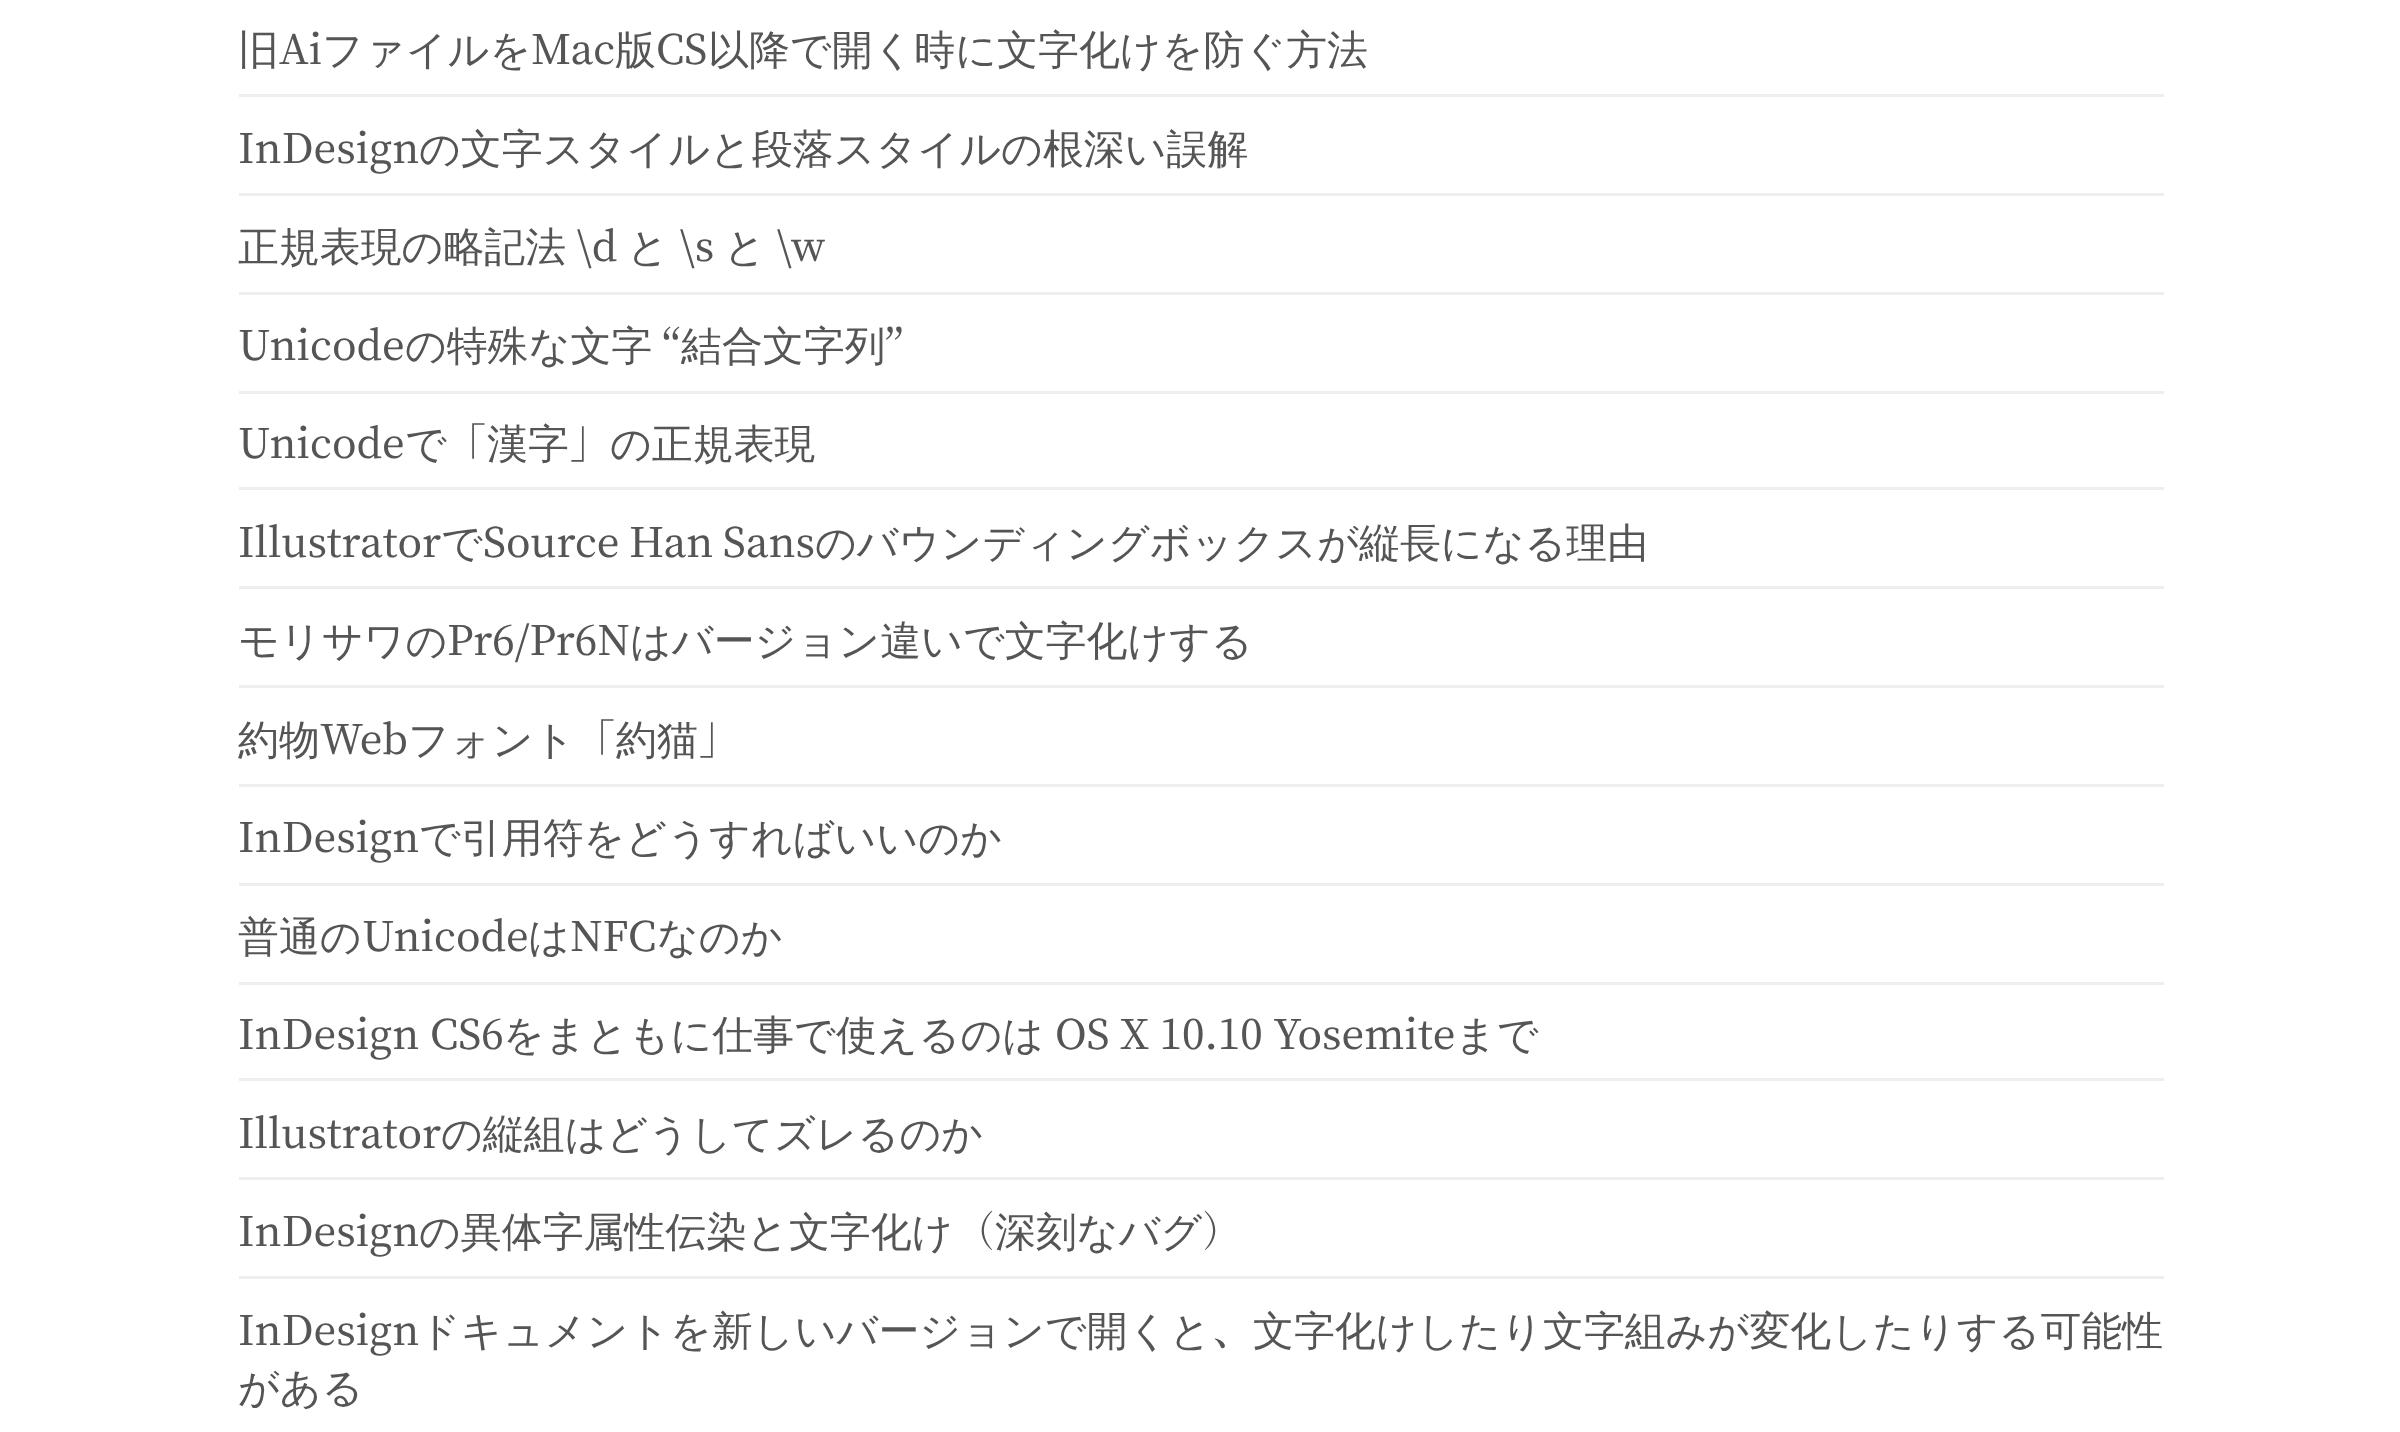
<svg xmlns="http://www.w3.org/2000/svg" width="2400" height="1432">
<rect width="100%" height="100%" fill="#fff"/>
<text x="238" y="64" style="font-family:WenQuanYi Zen Hei;font-size:40.9px;font-weight:500;fill:#555">旧</text>
<text x="279" y="64" style="font-family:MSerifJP;font-size:40.9px;font-weight:500;fill:#555">Ai</text>
<text x="322" y="64" style="font-family:WenQuanYi Zen Hei;font-size:40.9px;font-weight:500;fill:#555">ファイルを</text>
<text x="531" y="64" style="font-family:MSerifJP;font-size:40.9px;font-weight:500;fill:#555">Mac</text>
<text x="615" y="64" style="font-family:WenQuanYi Zen Hei;font-size:40.9px;font-weight:500;fill:#555">版</text>
<text x="656" y="64" style="font-family:MSerifJP;font-size:40.9px;font-weight:500;fill:#555">CS</text>
<text x="708" y="64" style="font-family:WenQuanYi Zen Hei;font-size:40.9px;font-weight:500;fill:#555">以降で開く時に文字化けを防ぐ方法</text>
<rect x="239" y="94" width="1925" height="3" fill="#eee"/>
<text x="238" y="163" style="font-family:MSerifJP;font-size:40.9px;font-weight:500;fill:#555">InDesign</text>
<text x="419" y="163" style="font-family:WenQuanYi Zen Hei;font-size:40.9px;font-weight:500;fill:#555">の文字スタイルと段落スタイルの根深い誤解</text>
<rect x="239" y="193" width="1925" height="3" fill="#eee"/>
<text x="238" y="261" style="font-family:WenQuanYi Zen Hei;font-size:40.9px;font-weight:500;fill:#555">正規表現の略記法</text>
<text x="577" y="261" style="font-family:MSerifJP;font-size:40.9px;font-weight:500;fill:#555">\d</text>
<text x="627" y="261" style="font-family:WenQuanYi Zen Hei;font-size:40.9px;font-weight:500;fill:#555">と</text>
<text x="680" y="261" style="font-family:MSerifJP;font-size:40.9px;font-weight:500;fill:#555">\s</text>
<text x="724" y="261" style="font-family:WenQuanYi Zen Hei;font-size:40.9px;font-weight:500;fill:#555">と</text>
<text x="777" y="261" style="font-family:MSerifJP;font-size:40.9px;font-weight:500;fill:#555">\w</text>
<rect x="239" y="292" width="1925" height="3" fill="#eee"/>
<text x="238" y="360" style="font-family:MSerifJP;font-size:40.9px;font-weight:500;fill:#555">Unicode</text>
<text x="405" y="360" style="font-family:WenQuanYi Zen Hei;font-size:40.9px;font-weight:500;fill:#555">の特殊な文字</text>
<text x="662" y="360" style="font-family:MSerifJP;font-size:40.9px;font-weight:500;fill:#555">“</text>
<text x="681" y="360" style="font-family:WenQuanYi Zen Hei;font-size:40.9px;font-weight:500;fill:#555">結合文字列</text>
<text x="885" y="360" style="font-family:MSerifJP;font-size:40.9px;font-weight:500;fill:#555">”</text>
<rect x="239" y="391" width="1925" height="3" fill="#eee"/>
<text x="238" y="458" style="font-family:MSerifJP;font-size:40.9px;font-weight:500;fill:#555">Unicode</text>
<text x="405" y="458" style="font-family:WenQuanYi Zen Hei;font-size:40.9px;font-weight:500;fill:#555">で</text>
<text x="446" y="458" style="font-family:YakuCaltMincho;font-size:40.9px;fill:#555">「</text>
<text x="487" y="458" style="font-family:WenQuanYi Zen Hei;font-size:40.9px;font-weight:500;fill:#555">漢字</text>
<text x="569" y="458" style="font-family:YakuCaltMincho;font-size:40.9px;fill:#555">」</text>
<text x="610" y="458" style="font-family:WenQuanYi Zen Hei;font-size:40.9px;font-weight:500;fill:#555">の正規表現</text>
<rect x="239" y="487" width="1925" height="3" fill="#eee"/>
<text x="238" y="557" style="font-family:MSerifJP;font-size:40.9px;font-weight:500;fill:#555">Illustrator</text>
<text x="441" y="557" style="font-family:WenQuanYi Zen Hei;font-size:40.9px;font-weight:500;fill:#555">で</text>
<text x="483" y="557" word-spacing="-1" style="font-family:MSerifJP;font-size:40.9px;font-weight:500;fill:#555">Source Han Sans</text>
<text x="815" y="557" style="font-family:WenQuanYi Zen Hei;font-size:40.9px;font-weight:500;fill:#555">のバウンディングボックスが縦長になる理由</text>
<rect x="239" y="586" width="1925" height="3" fill="#eee"/>
<text x="238" y="655" style="font-family:WenQuanYi Zen Hei;font-size:40.9px;font-weight:500;fill:#555">モリサワの</text>
<text x="447" y="655" style="font-family:MSerifJP;font-size:40.9px;font-weight:500;fill:#555">Pr6/Pr6N</text>
<text x="630" y="655" style="font-family:WenQuanYi Zen Hei;font-size:40.9px;font-weight:500;fill:#555">はバージョン違いで文字化けする</text>
<rect x="239" y="685" width="1925" height="3" fill="#eee"/>
<text x="238" y="754" style="font-family:WenQuanYi Zen Hei;font-size:40.9px;font-weight:500;fill:#555">約物</text>
<text x="320" y="754" style="font-family:MSerifJP;font-size:40.9px;font-weight:500;fill:#555">Web</text>
<text x="408" y="754" style="font-family:WenQuanYi Zen Hei;font-size:40.9px;font-weight:500;fill:#555">フォント</text>
<text x="575" y="754" style="font-family:YakuCaltMincho;font-size:40.9px;fill:#555">「</text>
<text x="616" y="754" style="font-family:WenQuanYi Zen Hei;font-size:40.9px;font-weight:500;fill:#555">約猫</text>
<text x="698" y="754" style="font-family:YakuCaltMincho;font-size:40.9px;fill:#555">」</text>
<rect x="239" y="784" width="1925" height="3" fill="#eee"/>
<text x="238" y="852" style="font-family:MSerifJP;font-size:40.9px;font-weight:500;fill:#555">InDesign</text>
<text x="419" y="852" style="font-family:WenQuanYi Zen Hei;font-size:40.9px;font-weight:500;fill:#555">で引用符をどうすればいいのか</text>
<rect x="239" y="883" width="1925" height="3" fill="#eee"/>
<text x="238" y="951" style="font-family:WenQuanYi Zen Hei;font-size:40.9px;font-weight:500;fill:#555">普通の</text>
<text x="362" y="951" style="font-family:MSerifJP;font-size:40.9px;font-weight:500;fill:#555">Unicode</text>
<text x="528" y="951" style="font-family:WenQuanYi Zen Hei;font-size:40.9px;font-weight:500;fill:#555">は</text>
<text x="570" y="951" style="font-family:MSerifJP;font-size:40.9px;font-weight:500;fill:#555">NFC</text>
<text x="657" y="951" style="font-family:WenQuanYi Zen Hei;font-size:40.9px;font-weight:500;fill:#555">なのか</text>
<rect x="239" y="982" width="1925" height="3" fill="#eee"/>
<text x="238" y="1049" style="font-family:MSerifJP;font-size:40.9px;font-weight:500;fill:#555">InDesign CS6</text>
<text x="503" y="1049" style="font-family:WenQuanYi Zen Hei;font-size:40.9px;font-weight:500;fill:#555">をまともに仕事で使えるのは</text>
<text x="1055" y="1049" style="font-family:MSerifJP;font-size:40.9px;font-weight:500;fill:#555">OS X 10.10 Yosemite</text>
<text x="1455" y="1049" style="font-family:WenQuanYi Zen Hei;font-size:40.9px;font-weight:500;fill:#555">まで</text>
<rect x="239" y="1078" width="1925" height="3" fill="#eee"/>
<text x="238" y="1148" style="font-family:MSerifJP;font-size:40.9px;font-weight:500;fill:#555">Illustrator</text>
<text x="441" y="1148" style="font-family:WenQuanYi Zen Hei;font-size:40.9px;font-weight:500;fill:#555">の縦組はどうしてズレるのか</text>
<rect x="239" y="1177" width="1925" height="3" fill="#eee"/>
<text x="238" y="1246" style="font-family:MSerifJP;font-size:40.9px;font-weight:500;fill:#555">InDesign</text>
<text x="419" y="1246" style="font-family:WenQuanYi Zen Hei;font-size:40.9px;font-weight:500;fill:#555">の異体字属性伝染と文字化け</text>
<text x="954" y="1246" style="font-family:YakuCaltMincho;font-size:40.9px;fill:#555">（</text>
<text x="995" y="1246" style="font-family:WenQuanYi Zen Hei;font-size:40.9px;font-weight:500;fill:#555">深刻なバグ</text>
<text x="1202" y="1246" style="font-family:YakuCaltMincho;font-size:40.9px;fill:#555">）</text>
<rect x="239" y="1276" width="1925" height="3" fill="#eee"/>
<text x="238" y="1345" style="font-family:MSerifJP;font-size:40.9px;font-weight:500;fill:#555">InDesign</text>
<text x="419" y="1345" style="font-family:WenQuanYi Zen Hei;font-size:40.9px;font-weight:500;fill:#555">ドキュメントを新しいバージョンで開くと</text>
<text x="1212" y="1345" style="font-family:YakuCaltMincho;font-size:40.9px;fill:#555">、</text>
<text x="1253" y="1345" style="font-family:WenQuanYi Zen Hei;font-size:40.9px;font-weight:500;fill:#555">文字化けしたり文字組みが変化したりする可能性</text>
<text x="238" y="1402" style="font-family:WenQuanYi Zen Hei;font-size:40.9px;font-weight:500;fill:#555">がある</text>
</svg>
